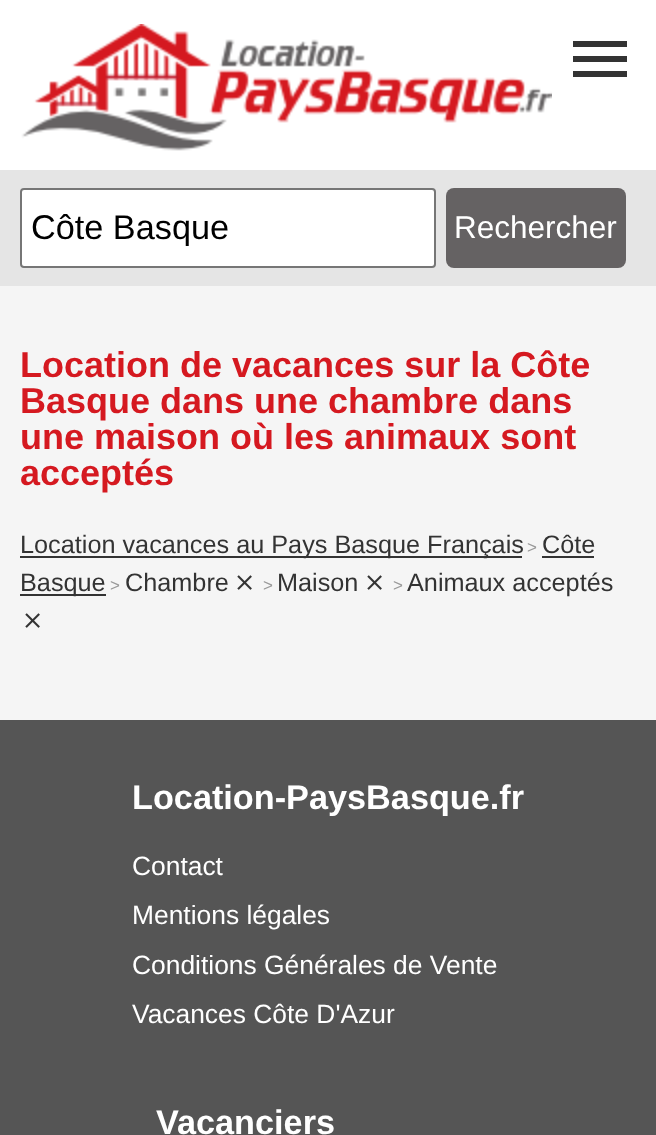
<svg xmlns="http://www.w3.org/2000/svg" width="656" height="1135">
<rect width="100%" height="100%" fill="#f5f5f5"/>
<rect width="656" height="170" fill="#fff"/>
<image x="21" y="24" width="531" height="127" href="media/1.png"/>
<path d="M573 77v-6h54v6zm0-15v-6h54v6zm0-21h54v6h-54z" fill="#333"/>
<rect y="170" width="656" height="116" fill="#e5e5e5"/>
<rect x="21" y="189" width="414" height="78" rx="3" fill="#fff" stroke="#767676" stroke-width="2"/>
<text x="31" y="239" style="font-family:Liberation Sans;font-size:34.25px;fill:#000">Côte Basque</text>
<rect x="446" y="188" width="180" height="80" rx="8" fill="#656263"/>
<text x="454" y="238" style="font-family:Liberation Sans;font-size:31.5px;fill:#fff">Rechercher</text>
<text x="20" y="377" style="font-family:Liberation Sans;font-size:36px;font-weight:bold;fill:#d51920">Location de vacances sur la Côte</text>
<text x="20" y="413" style="font-family:Liberation Sans;font-size:36px;font-weight:bold;fill:#d51920">Basque dans une chambre dans</text>
<text x="20" y="449" style="font-family:Liberation Sans;font-size:36px;font-weight:bold;fill:#d51920">une maison où les animaux sont</text>
<text x="20" y="485" style="font-family:Liberation Sans;font-size:36px;font-weight:bold;fill:#d51920">acceptés</text>
<rect x="20" y="556" width="502" height="2" fill="#333"/>
<text x="20" y="553" style="font-family:Liberation Sans;font-size:25.25px;fill:#333">Location vacances au Pays Basque Français</text>
<text x="527" y="553" style="font-family:Liberation Sans;font-size:17px;fill:#999">&gt;</text>
<text x="542" y="553" style="font-family:Liberation Sans;font-size:25.25px;fill:#333">Côte</text>
<rect x="542" y="556" width="52" height="2" fill="#333"/>
<rect x="20" y="594" width="86" height="2" fill="#333"/>
<text x="20" y="591" style="font-family:Liberation Sans;font-size:25.25px;fill:#333">Basque</text>
<text x="110" y="591" style="font-family:Liberation Sans;font-size:17px;fill:#999">&gt;</text>
<text x="125" y="591" style="font-family:Liberation Sans;font-size:25.25px;fill:#333">Chambre</text>
<image x="237" y="575" width="15" height="15" href="media/2.png"/>
<text x="263" y="591" style="font-family:Liberation Sans;font-size:17px;fill:#999">&gt;</text>
<text x="277" y="591" style="font-family:Liberation Sans;font-size:25.25px;fill:#333">Maison</text>
<image x="367" y="575" width="15" height="15" href="media/2.png"/>
<text x="393" y="591" style="font-family:Liberation Sans;font-size:17px;fill:#999">&gt;</text>
<text x="407" y="591" style="font-family:Liberation Sans;font-size:25.25px;fill:#333">Animaux acceptés</text>
<image x="25" y="613" width="15" height="15" href="media/2.png"/>
<rect y="720" width="656" height="415" fill="#555"/>
<text x="132" y="809" style="font-family:Liberation Sans;font-size:34.25px;font-weight:bold;fill:#fff">Location-PaysBasque.fr</text>
<text x="132" y="875" style="font-family:Liberation Sans;font-size:26.4px;fill:#fff">Contact</text>
<text x="132" y="924" style="font-family:Liberation Sans;font-size:26.4px;fill:#fff">Mentions légales</text>
<text x="132" y="974" style="font-family:Liberation Sans;font-size:26.4px;fill:#fff">Conditions Générales de Vente</text>
<text x="132" y="1023" style="font-family:Liberation Sans;font-size:26.4px;fill:#fff">Vacances Côte D'Azur</text>
<text x="156" y="1134" style="font-family:Liberation Sans;font-size:34.25px;font-weight:bold;fill:#fff">Vacanciers</text>
</svg>
